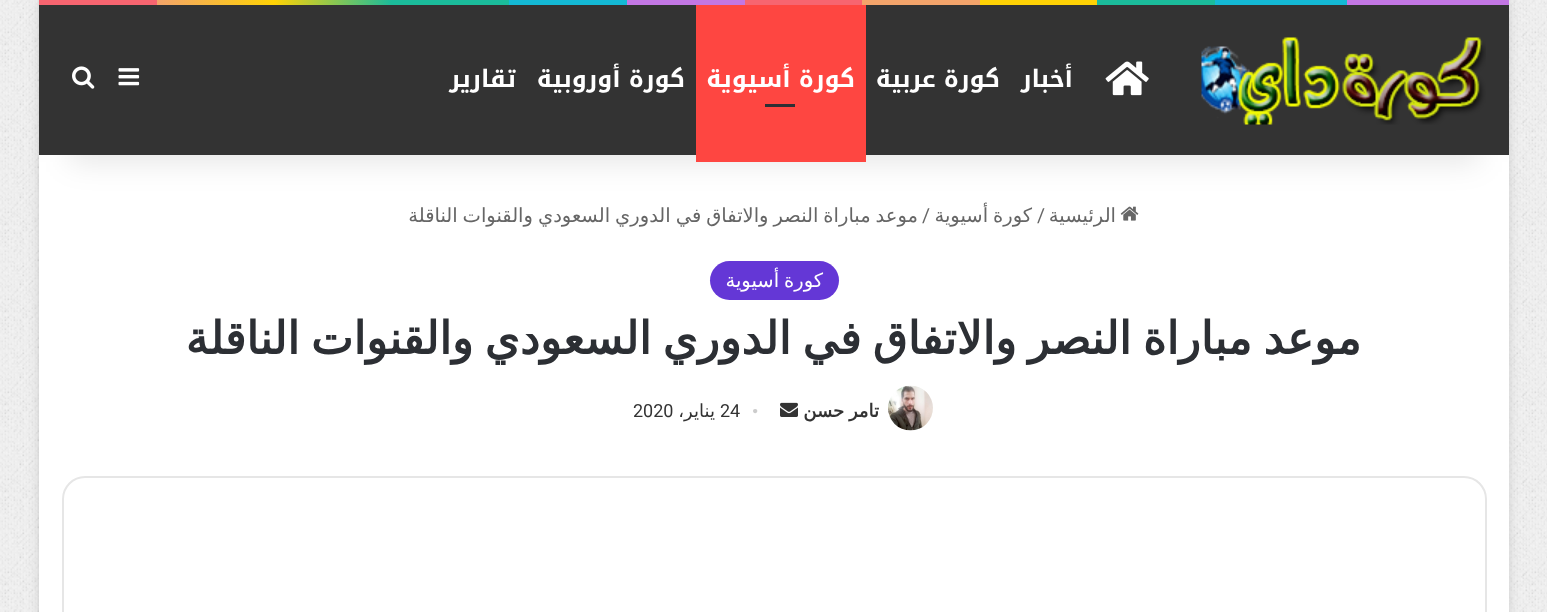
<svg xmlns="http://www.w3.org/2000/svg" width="1547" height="612">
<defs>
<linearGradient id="g1" gradientUnits="userSpaceOnUse" x1="39" y1="2.3" x2="1509" y2="2.2"><stop offset="0" stop-color="#f76570"/><stop offset="0.08" stop-color="#f76570"/><stop offset="0.08" stop-color="#f3a46b"/><stop offset="0.16" stop-color="#ffd205"/><stop offset="0.24" stop-color="#1bbc9b"/><stop offset="0.32" stop-color="#1bbc9b"/><stop offset="0.32" stop-color="#14b9d5"/><stop offset="0.4" stop-color="#14b9d5"/><stop offset="0.4" stop-color="#c377e4"/><stop offset="0.48" stop-color="#c377e4"/><stop offset="0.48" stop-color="#f76570"/><stop offset="0.56" stop-color="#f76570"/><stop offset="0.56" stop-color="#f3a46b"/><stop offset="0.64" stop-color="#f3a46b"/><stop offset="0.64" stop-color="#ffd205"/><stop offset="0.72" stop-color="#ffd205"/><stop offset="0.72" stop-color="#1bbc9b"/><stop offset="0.8" stop-color="#1bbc9b"/><stop offset="0.8" stop-color="#14b9d5"/><stop offset="0.89" stop-color="#14b9d5"/><stop offset="0.89" stop-color="#c377e4"/><stop offset="1" stop-color="#c377e4"/></linearGradient>
</defs>
<rect width="100%" height="100%" fill="#f7f7f7"/>
<image x="0" y="0" width="1547" height="612" href="media/1.png"/>
<rect x="39" y="2" width="1470" height="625" fill="#ababab80" filter="blur(5px)"/>
<rect x="39" y="155" width="1470" height="457" fill="#fff"/>
<rect x="39" width="1470" height="5" fill="url(#g1)"/>
<image x="1120" y="206" width="19" height="15" href="media/6.png"/>
<rect x="69" y="72" width="1410" height="90" fill="#0000001a" filter="blur(15px)"/>
<rect x="39" y="5" width="1470" height="150" fill="#333"/>
<image x="1201" y="37" width="285" height="88" href="media/2.png"/>
<image x="1105" y="61" width="44" height="35" href="media/3.png"/>
<text x="1073" y="87" style="font-family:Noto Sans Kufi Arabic;font-size:24px;font-weight:bold;direction:rtl;fill:#fff">أخبار</text>
<text x="1000" y="87" style="font-family:Noto Sans Kufi Arabic;font-size:24px;font-weight:bold;direction:rtl;fill:#fff">كورة عربية</text>
<rect x="696" y="5" width="170" height="157" fill="#fe4641"/>
<text x="855" y="87" style="font-family:Noto Sans Kufi Arabic;font-size:24px;font-weight:bold;direction:rtl;fill:#fff">كورة أسيوية</text>
<rect x="765" y="104" width="30" height="3" fill="#2c2f34"/>
<text x="685" y="87" style="font-family:Noto Sans Kufi Arabic;font-size:24px;font-weight:bold;direction:rtl;fill:#fff">كورة أوروبية</text>
<text x="516" y="87" style="font-family:Noto Sans Kufi Arabic;font-size:24px;font-weight:bold;direction:rtl;fill:#fff">تقارير</text>
<image x="118" y="68" width="22" height="18" href="media/4.png"/>
<image x="72" y="66" width="23" height="23" href="media/5.png"/>
<text x="1116" y="222" style="font-family:DejaVu Sans;font-size:19.5px;direction:rtl;fill:#666">الرئيسية</text>
<text x="1037" y="222" style="font-family:Roboto;font-size:19.5px;fill:#666">/</text>
<text x="1032" y="222" word-spacing="-1.25" style="font-family:DejaVu Sans;font-size:19.5px;direction:rtl;fill:#666">كورة أسيوية</text>
<text x="922" y="222" style="font-family:Roboto;font-size:19.5px;fill:#666">/</text>
<text x="918" y="222" word-spacing="-1.25" style="font-family:DejaVu Sans;font-size:19.5px;direction:rtl;fill:#666">موعد مباراة النصر والاتفاق في الدوري السعودي والقنوات الناقلة</text>
<rect x="710" y="261" width="129" height="39" rx="19.5" fill="#6437d6"/>
<text x="823" y="287" word-spacing="-1.25" style="font-family:DejaVu Sans;font-size:19.5px;direction:rtl;fill:#fff">كورة أسيوية</text>
<text x="1361" y="354" word-spacing="-3" style="font-family:DejaVu Sans;font-size:45px;font-weight:bold;direction:rtl;fill:#2c2f34">موعد مباراة النصر والاتفاق في الدوري السعودي والقنوات الناقلة</text>
<image x="888" y="385" width="45" height="46" href="media/7.png"/>
<text x="879" y="417" word-spacing="-1" style="font-family:DejaVu Sans;font-size:18px;font-weight:bold;direction:rtl;fill:#333">تامر حسن</text>
<image x="780" y="402" width="18" height="15" href="media/8.png"/>
<text x="752" y="417" style="font-family:Liberation Serif;font-size:18px;fill:#ccc">•</text>
<text x="720" y="417" style="font-family:Roboto;font-size:18px;fill:#333">24</text>
<text x="715" y="417" style="font-family:DejaVu Sans;font-size:18px;direction:rtl;fill:#333">يناير،</text>
<text x="633" y="417" style="font-family:Roboto;font-size:18px;fill:#333">2020</text>
<rect x="63" y="477" width="1423" height="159" rx="22" fill="none" stroke="#e6e6e6" stroke-width="2"/>
</svg>
